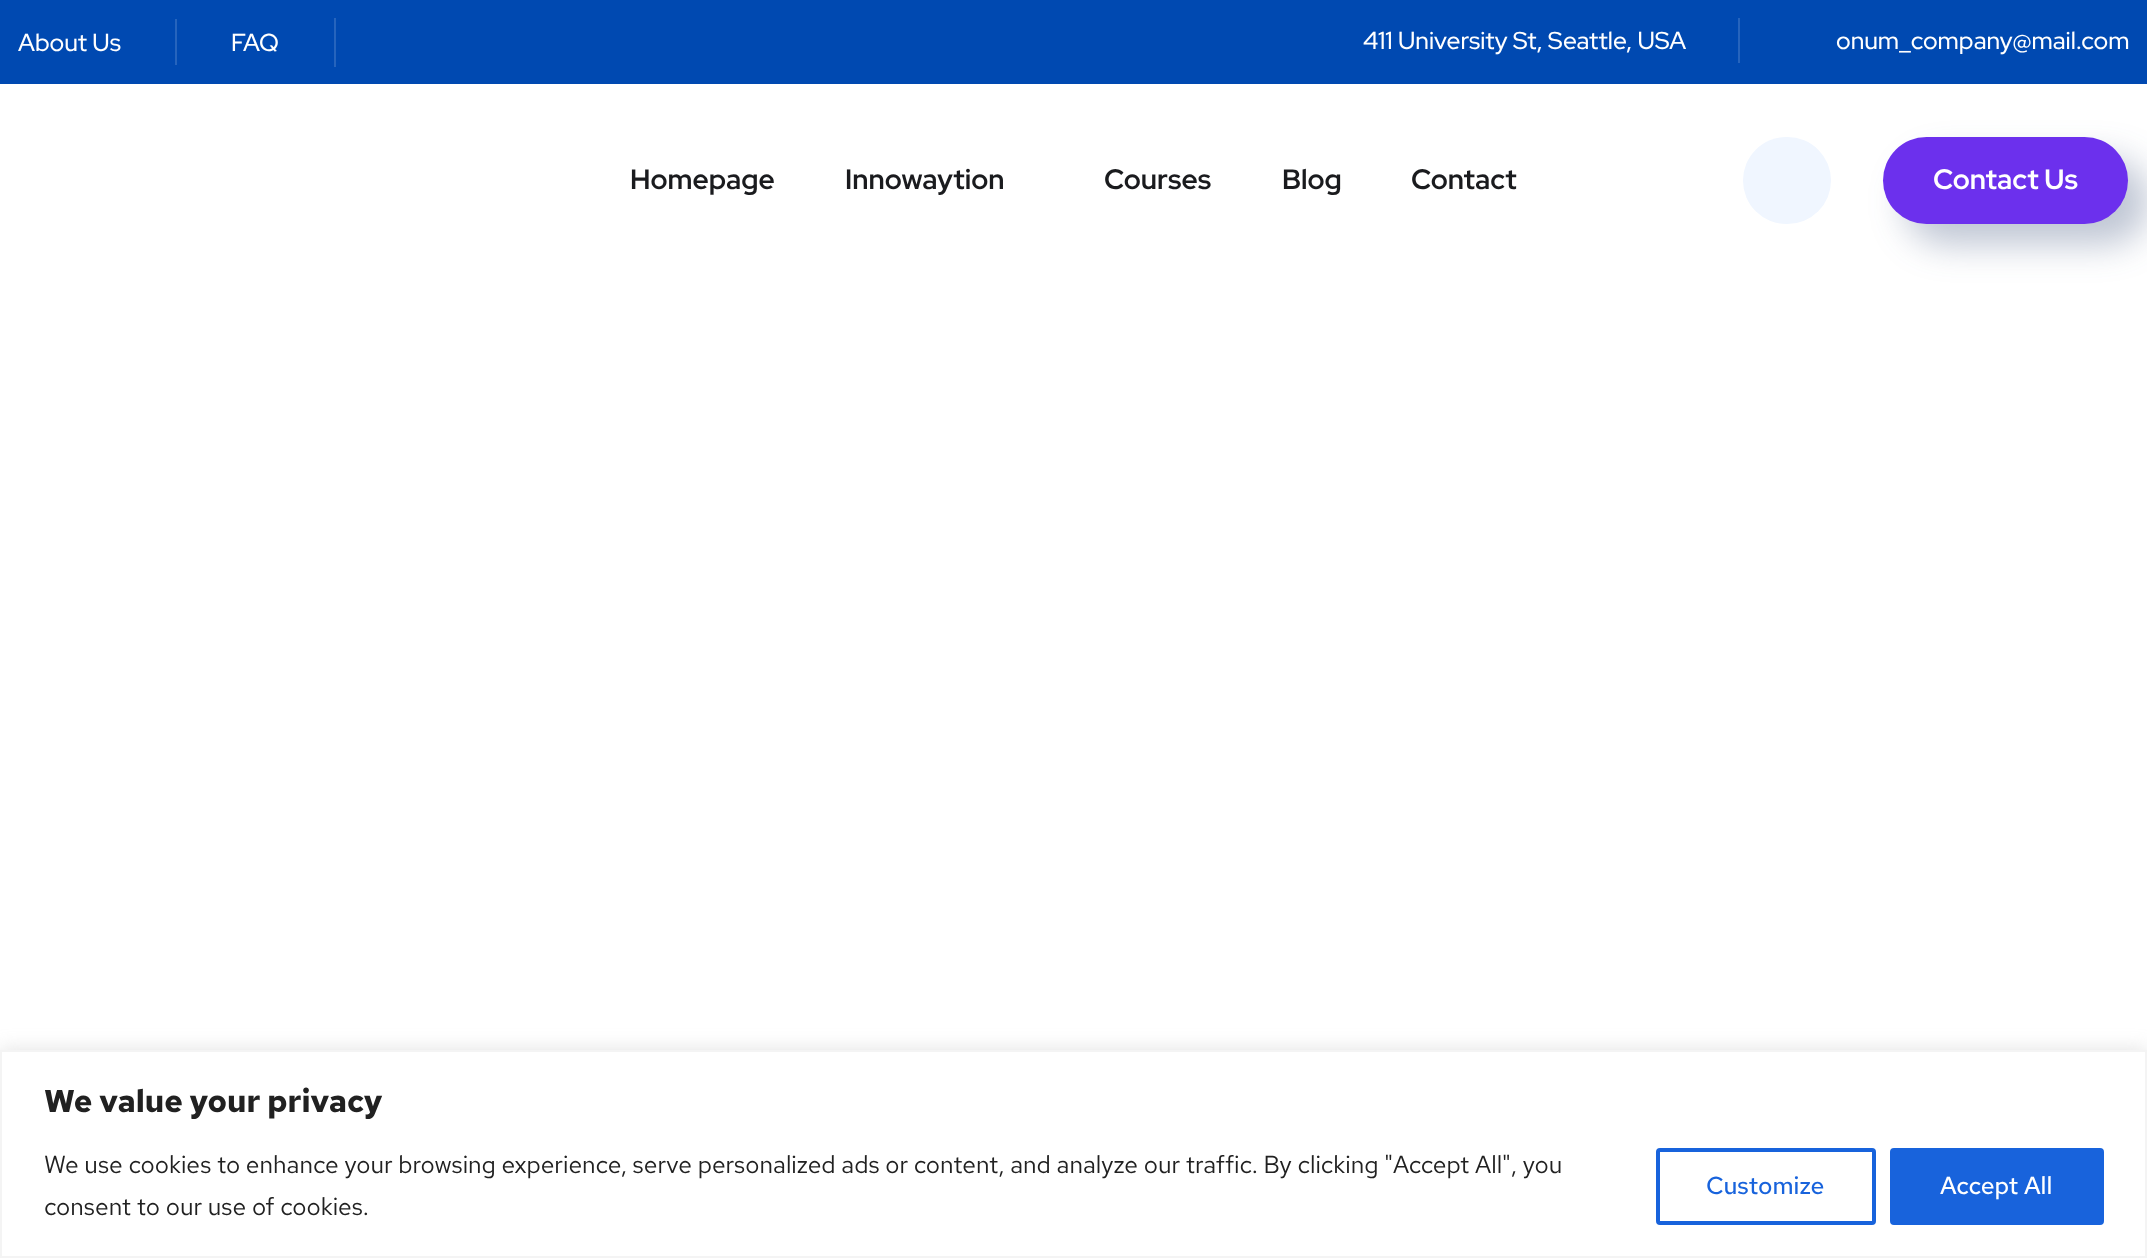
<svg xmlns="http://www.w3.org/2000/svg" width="2147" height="1258">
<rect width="100%" height="100%" fill="#fff"/>
<rect width="2147" height="84" fill="#0049b1"/>
<text x="18" y="51" style="font-family:Red Hat Display;font-size:24.5px;font-weight:500;fill:#fff">About Us</text>
<rect x="175" y="19" width="2" height="46" fill="#2664bd"/>
<text x="231" y="51" style="font-family:Red Hat Display;font-size:24.5px;font-weight:500;fill:#fff">FAQ</text>
<rect x="334" y="18" width="2" height="49" fill="#2664bd"/>
<text x="1363" y="49" style="font-family:Red Hat Display;font-size:24.5px;font-weight:500;fill:#fff">411 University St, Seattle, USA</text>
<rect x="1738" y="18" width="2" height="45" fill="#2664bd"/>
<text x="1836" y="49" style="font-family:Red Hat Display;font-size:24.5px;font-weight:500;fill:#fff">onum_company@mail.com</text>
<text x="630" y="189" style="font-family:Red Hat Display;font-size:28px;font-weight:bold;fill:#1a1b1e">Homepage</text>
<text x="845" y="189" style="font-family:Red Hat Display;font-size:28px;font-weight:bold;fill:#1a1b1e">Innowaytion</text>
<text x="1104" y="189" style="font-family:Red Hat Display;font-size:28px;font-weight:bold;fill:#1a1b1e">Courses</text>
<text x="1282" y="189" style="font-family:Red Hat Display;font-size:28px;font-weight:bold;fill:#1a1b1e">Blog</text>
<text x="1411" y="189" style="font-family:Red Hat Display;font-size:28px;font-weight:bold;fill:#1a1b1e">Contact</text>
<rect x="1743" y="137" width="88" height="87" rx="43.5" fill="#f0f6ff"/>
<rect x="1904" y="158" width="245" height="87" rx="43.5" fill="#2a43714d" filter="blur(17.5px)"/>
<rect x="1883" y="137" width="245" height="87" rx="43.5" fill="#6c30ed"/>
<text x="1933" y="189" style="font-family:Red Hat Display;font-size:28px;font-weight:bold;fill:#fff">Contact Us</text>
<rect y="1048" width="2147" height="209" fill="#acabab4d" filter="blur(9px)"/>
<rect x="1" y="1051" width="2145" height="206" fill="#fff" stroke="#f4f4f4" stroke-width="2"/>
<text x="44" y="1112" style="font-family:Red Hat Text;font-size:31.5px;font-weight:bold;fill:#212121">We value your privacy</text>
<text x="44" y="1173" style="font-family:Red Hat Text;font-size:24.5px;fill:#212121">We use cookies to enhance your browsing experience, serve personalized ads or content, and analyze our traffic. By clicking "Accept All", you</text>
<text x="44" y="1215" style="font-family:Red Hat Text;font-size:24.5px;fill:#212121">consent to our use of cookies.</text>
<rect x="1658" y="1150" width="216" height="73" rx="2" fill="none" stroke="#1863dc" stroke-width="4"/>
<text x="1706" y="1194" style="font-family:Red Hat Text;font-size:24.5px;font-weight:500;fill:#1863dc">Customize</text>
<rect x="1892" y="1150" width="210" height="73" rx="2" fill="#1863dc" stroke="#1863dc" stroke-width="4"/>
<text x="1940" y="1194" style="font-family:Red Hat Text;font-size:24.5px;font-weight:500;fill:#fff">Accept All</text>
</svg>
